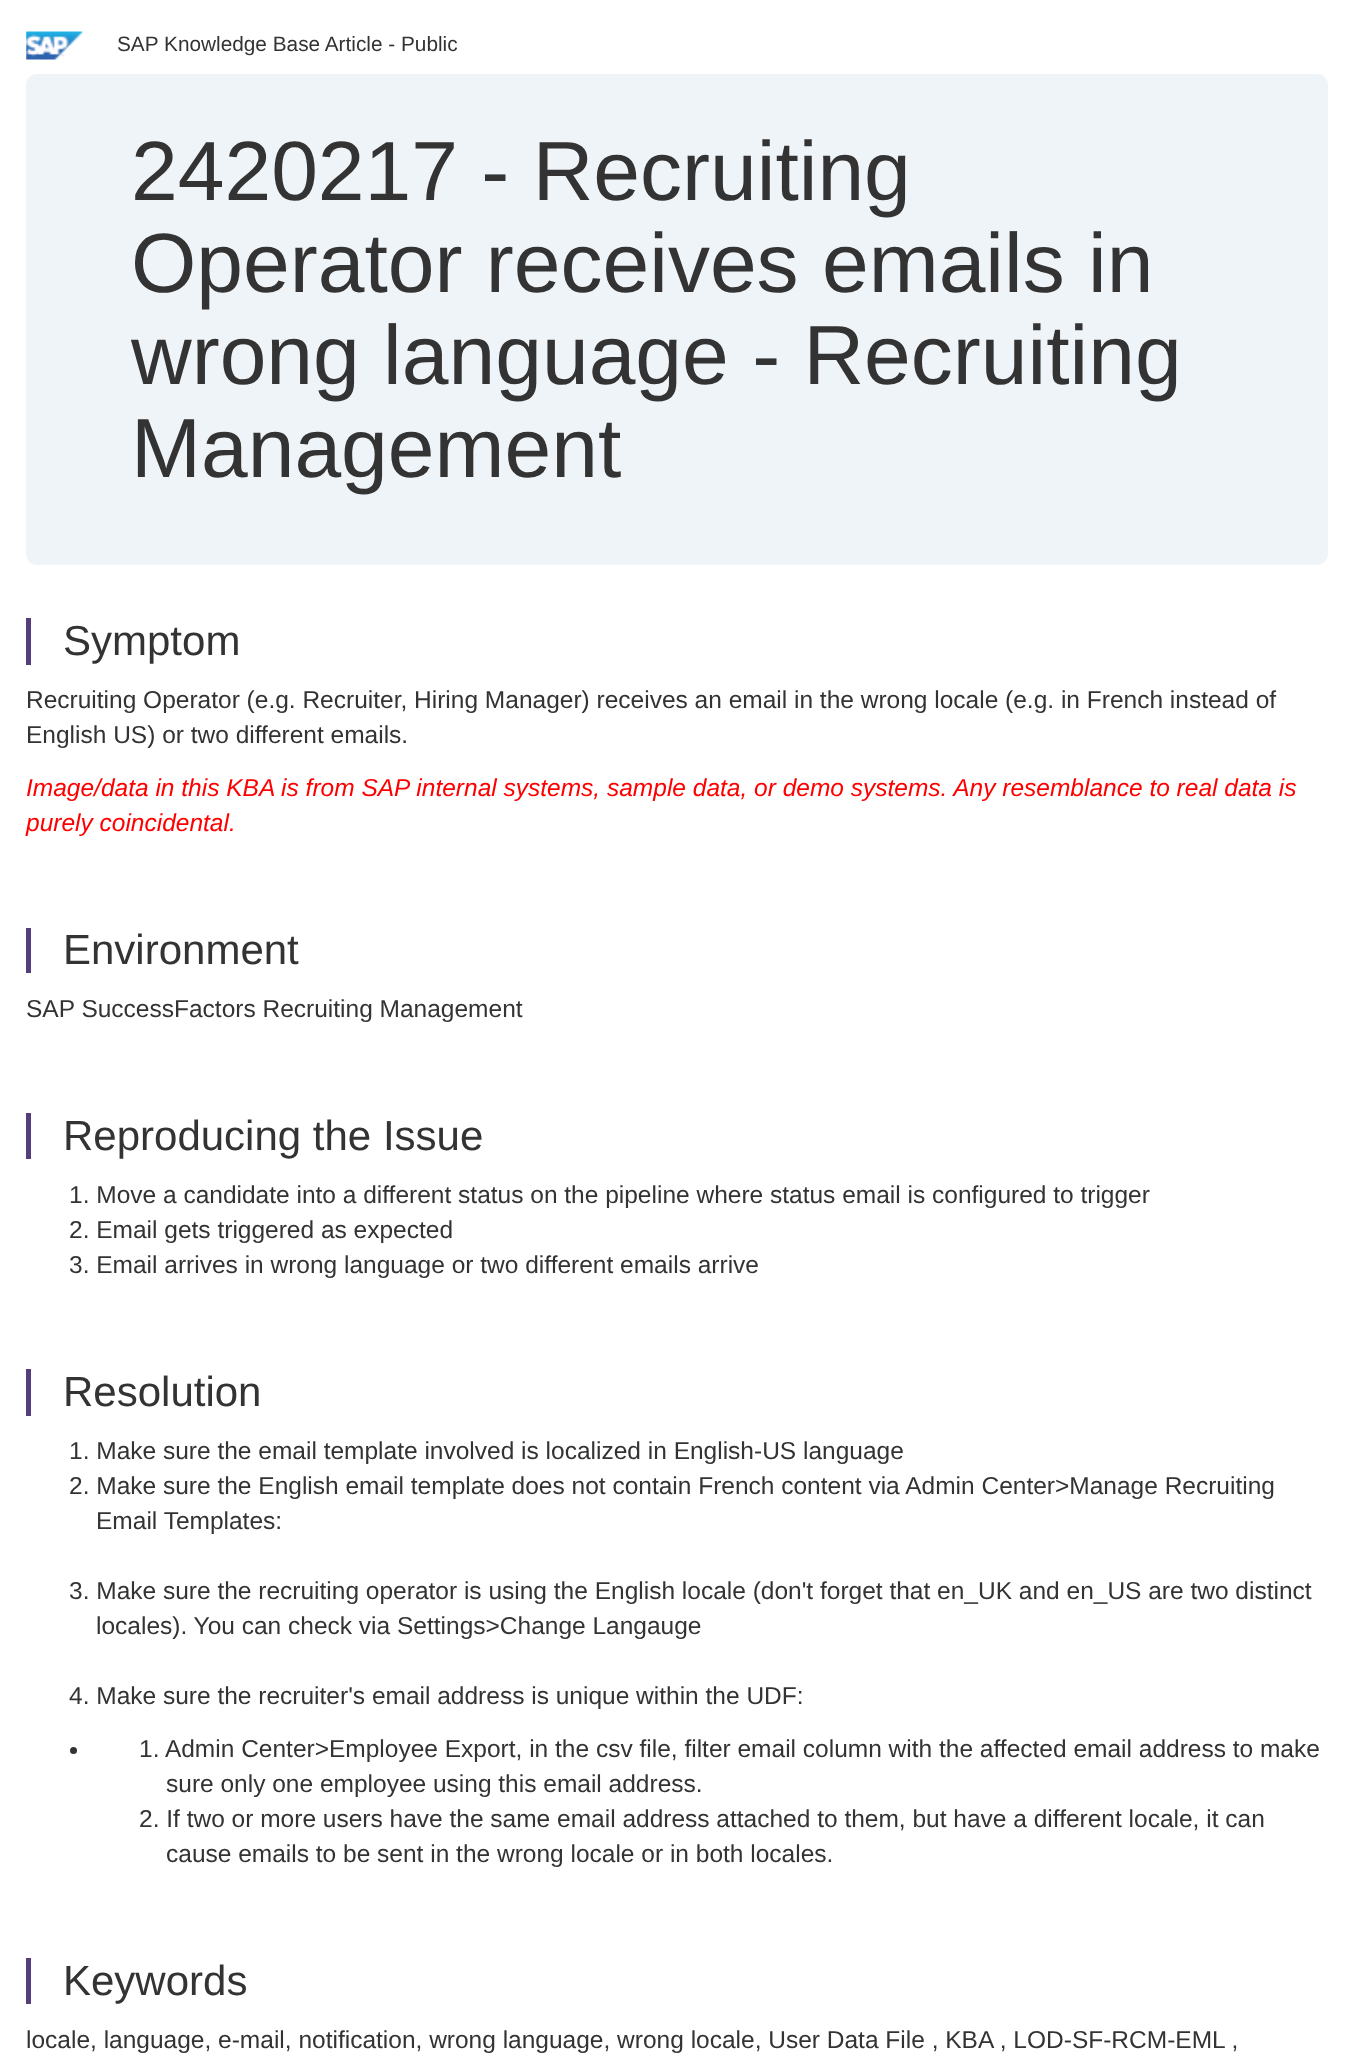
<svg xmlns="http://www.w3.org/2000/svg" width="1354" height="2071">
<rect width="100%" height="100%" fill="#fff"/>
<image x="26" y="31" width="57" height="29" href="media/1.png"/>
<text x="117" y="51" style="font-family:Liberation Sans;font-size:20.8px;fill:#333">SAP Knowledge Base Article - Public</text>
<rect x="26" y="74" width="1302" height="491" rx="11" fill="#eff4f9"/>
<text x="131" y="200" style="font-family:Liberation Sans;font-size:84px;fill:#333">2420217 - Recruiting</text>
<text x="131" y="292" style="font-family:Liberation Sans;font-size:84px;fill:#333">Operator receives emails in</text>
<text x="131" y="384" style="font-family:Liberation Sans;font-size:84px;fill:#333">wrong language - Recruiting</text>
<text x="131" y="477" style="font-family:Liberation Sans;font-size:84px;fill:#333">Management</text>
<rect x="26" y="618" width="5" height="47" fill="#563d7c"/>
<text x="63" y="655" style="font-family:Liberation Sans;font-size:42px;fill:#333">Symptom</text>
<text x="26" y="708" style="font-family:Liberation Sans;font-size:24.5px;fill:#333">Recruiting Operator (e.g. Recruiter, Hiring Manager) receives an email in the wrong locale (e.g. in French instead of</text>
<text x="26" y="743" style="font-family:Liberation Sans;font-size:24.5px;fill:#333">English US) or two different emails.</text>
<text x="26" y="796" style="font-family:Liberation Sans;font-size:24.5px;font-style:italic;fill:#f00">Image/data in this KBA is from SAP internal systems, sample data, or demo systems. Any resemblance to real data is</text>
<text x="26" y="831" style="font-family:Liberation Sans;font-size:24.5px;font-style:italic;fill:#f00">purely coincidental.</text>
<rect x="26" y="928" width="5" height="45" fill="#563d7c"/>
<text x="63" y="964" style="font-family:Liberation Sans;font-size:42px;fill:#333">Environment</text>
<text x="26" y="1017" style="font-family:Liberation Sans;font-size:24.5px;fill:#333">SAP SuccessFactors Recruiting Management</text>
<rect x="26" y="1113" width="5" height="46" fill="#563d7c"/>
<text x="63" y="1150" style="font-family:Liberation Sans;font-size:42px;fill:#333">Reproducing the Issue</text>
<text x="69" y="1203" style="font-family:Liberation Sans;font-size:24.5px;fill:#333">1. Move a candidate into a different status on the pipeline where status email is configured to trigger</text>
<text x="69" y="1238" style="font-family:Liberation Sans;font-size:24.5px;fill:#333">2. Email gets triggered as expected</text>
<text x="69" y="1273" style="font-family:Liberation Sans;font-size:24.5px;fill:#333">3. Email arrives in wrong language or two different emails arrive</text>
<rect x="26" y="1369" width="5" height="47" fill="#563d7c"/>
<text x="63" y="1406" style="font-family:Liberation Sans;font-size:42px;fill:#333">Resolution</text>
<text x="69" y="1459" style="font-family:Liberation Sans;font-size:24.5px;fill:#333">1. Make sure the email template involved is localized in English-US language</text>
<text x="69" y="1494" style="font-family:Liberation Sans;font-size:24.5px;fill:#333">2. Make sure the English email template does not contain French content via Admin Center&gt;Manage Recruiting</text>
<text x="96" y="1529" style="font-family:Liberation Sans;font-size:24.5px;fill:#333">Email Templates:</text>
<text x="69" y="1599" style="font-family:Liberation Sans;font-size:24.5px;fill:#333">3. Make sure the recruiting operator is using the English locale (don't forget that en_UK and en_US are two distinct</text>
<text x="96" y="1634" style="font-family:Liberation Sans;font-size:24.5px;fill:#333">locales). You can check via Settings&gt;Change Langauge</text>
<text x="69" y="1704" style="font-family:Liberation Sans;font-size:24.5px;fill:#333">4. Make sure the recruiter's email address is unique within the UDF:</text>
<circle cx="73.5" cy="1750.5" r="3.5" fill="#333"/>
<text x="139" y="1757" style="font-family:Liberation Sans;font-size:24.5px;fill:#333">1. Admin Center&gt;Employee Export, in the csv file, filter email column with the affected email address to make</text>
<text x="166" y="1792" style="font-family:Liberation Sans;font-size:24.5px;fill:#333">sure only one employee using this email address.</text>
<text x="139" y="1827" style="font-family:Liberation Sans;font-size:24.5px;fill:#333">2. If two or more users have the same email address attached to them, but have a different locale, it can</text>
<text x="166" y="1862" style="font-family:Liberation Sans;font-size:24.5px;fill:#333">cause emails to be sent in the wrong locale or in both locales.</text>
<rect x="26" y="1958" width="5" height="46" fill="#563d7c"/>
<text x="63" y="1995" style="font-family:Liberation Sans;font-size:42px;fill:#333">Keywords</text>
<text x="26" y="2048" style="font-family:Liberation Sans;font-size:24.5px;fill:#333">locale, language, e-mail, notification, wrong language, wrong locale, User Data File , KBA , LOD-SF-RCM-EML ,</text>
</svg>
